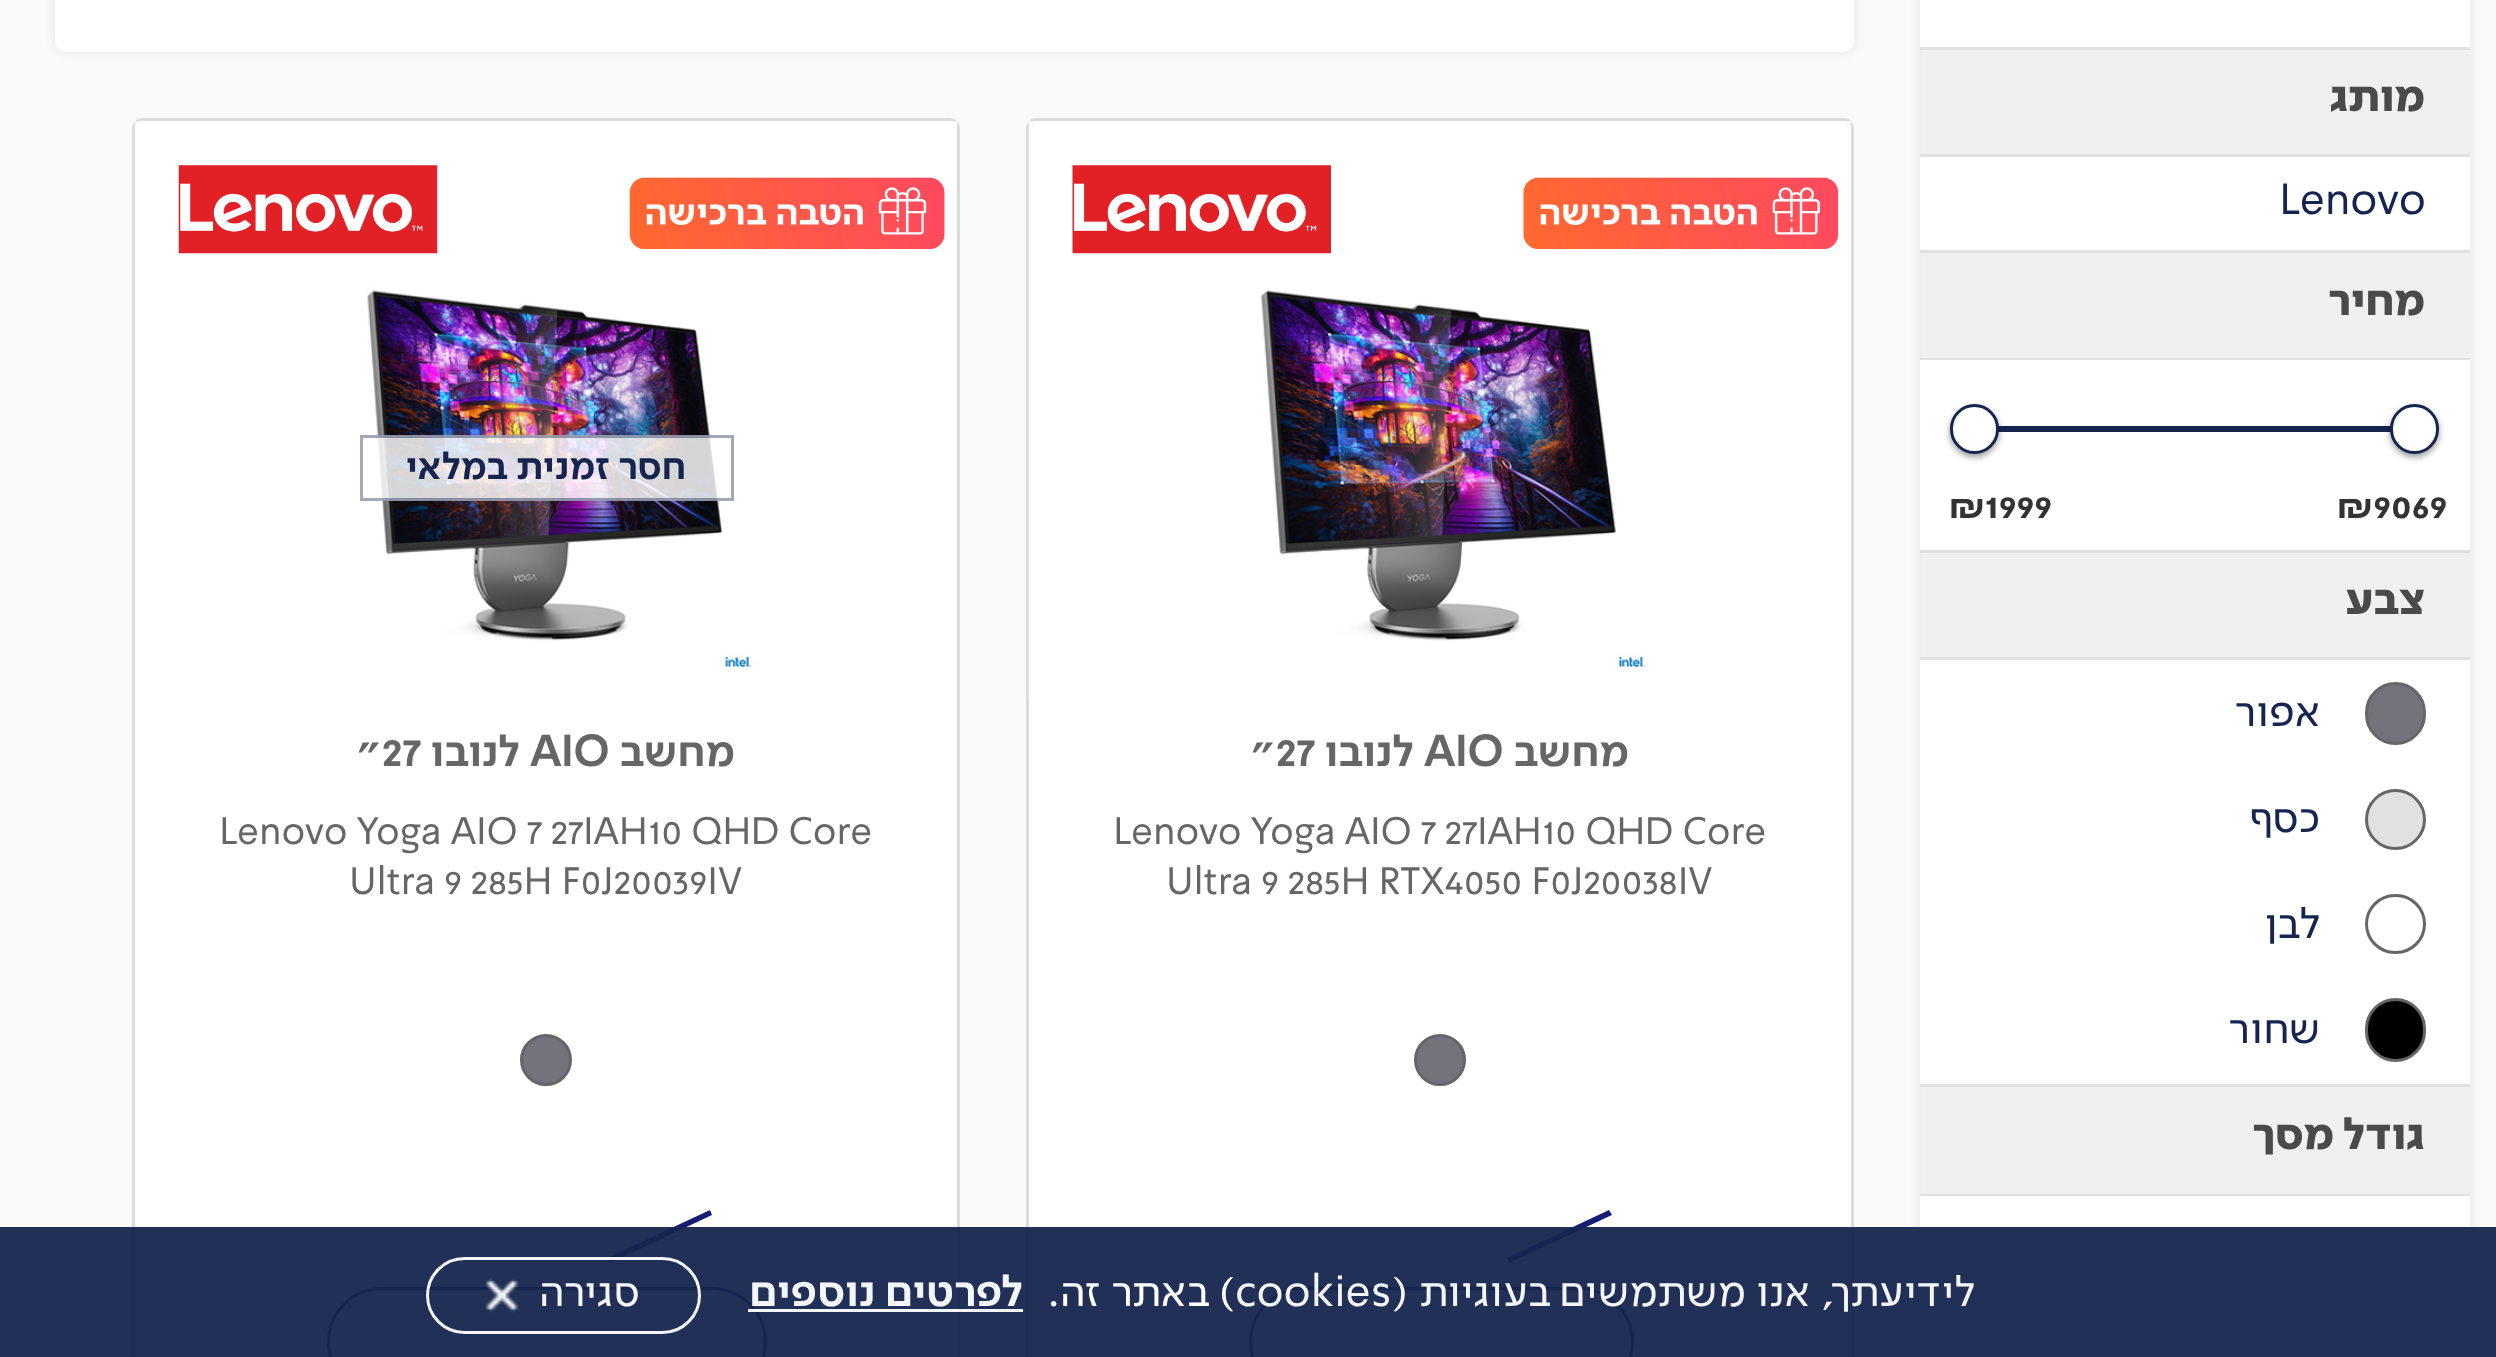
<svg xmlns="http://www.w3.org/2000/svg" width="2496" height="1357">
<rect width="100%" height="100%" fill="#fafafa"/>
<rect x="55" y="-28" width="1799" height="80" rx="11" fill="#00000017" filter="blur(5.5px)"/>
<rect x="55" y="-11" width="1799" height="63" rx="11" fill="#fff"/>
<rect x="133.5" y="119.5" width="825" height="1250" rx="9.5" fill="#fff" stroke="#dbdbdb" stroke-width="3"/>
<image x="135" y="121" width="822" height="547" href="media/3.png"/>
<image x="178" y="165" width="260" height="89" href="media/1.png"/>
<image x="629" y="177" width="316" height="72" href="media/2.png"/>
<rect x="377" y="435" width="342" height="66" fill="#ffffffd4"/>
<rect x="361.5" y="436.5" width="371" height="63" fill="none" stroke="#16254f66" stroke-width="3"/>
<text x="686" y="479" style="font-family:'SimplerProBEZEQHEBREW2';font-size:38.5px;font-weight:600;direction:rtl;fill:#162550">חסר זמנית במלאי</text>
<text x="356" y="766" style="font-family:'SimplerProBEZEQHEBREW2';font-size:44px;font-weight:600;fill:#666">"27</text>
<text x="520" y="766" style="font-family:'SimplerProBEZEQHEBREW2';font-size:44px;font-weight:600;direction:rtl;fill:#666">לנובו</text>
<text x="530" y="766" style="font-family:'SimplerProBEZEQHEBREW2';font-size:44px;font-weight:600;fill:#666">AIO</text>
<text x="735" y="766" style="font-family:'SimplerProBEZEQHEBREW2';font-size:44px;font-weight:600;direction:rtl;fill:#666">מחשב</text>
<text x="219" y="844" style="font-family:'SimplerProBEZEQHEBREW2';font-size:38.5px;fill:#666">Lenovo Yoga AIO 7 27IAH10 QHD Core</text>
<text x="349" y="894" style="font-family:'SimplerProBEZEQHEBREW2';font-size:38.5px;fill:#666">Ultra 9 285H F0J20039IV</text>
<circle cx="546" cy="1060" r="24.5" fill="#74737b" stroke="#666" stroke-width="3"/>
<path d="M607 1258l103-48l2 5l-102 48z" fill="#171d73"/>
<rect x="328.5" y="1288.5" width="437" height="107" rx="53.5" fill="none" stroke="#16254f" stroke-width="3"/>
<rect x="1027.5" y="119.5" width="825" height="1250" rx="9.5" fill="#fff" stroke="#dbdbdb" stroke-width="3"/>
<image x="1028" y="121" width="823" height="578" href="media/6.png"/>
<image x="1072" y="165" width="259" height="89" href="media/4.png"/>
<image x="1523" y="177" width="316" height="72" href="media/5.png"/>
<text x="1250" y="766" style="font-family:'SimplerProBEZEQHEBREW2';font-size:44px;font-weight:600;fill:#666">"27</text>
<text x="1414" y="766" style="font-family:'SimplerProBEZEQHEBREW2';font-size:44px;font-weight:600;direction:rtl;fill:#666">לנובו</text>
<text x="1424" y="766" style="font-family:'SimplerProBEZEQHEBREW2';font-size:44px;font-weight:600;fill:#666">AIO</text>
<text x="1629" y="766" style="font-family:'SimplerProBEZEQHEBREW2';font-size:44px;font-weight:600;direction:rtl;fill:#666">מחשב</text>
<text x="1113" y="844" style="font-family:'SimplerProBEZEQHEBREW2';font-size:38.5px;fill:#666">Lenovo Yoga AIO 7 27IAH10 QHD Core</text>
<text x="1166" y="894" style="font-family:'SimplerProBEZEQHEBREW2';font-size:38.5px;fill:#666">Ultra 9 285H RTX4050 F0J20038IV</text>
<circle cx="1440" cy="1060" r="24.5" fill="#74737b" stroke="#666" stroke-width="3"/>
<path d="M1507 1258l102-48l3 5l-103 48z" fill="#171d73"/>
<rect x="1250.5" y="1288.5" width="382" height="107" rx="53.5" fill="none" stroke="#16254f" stroke-width="3"/>
<rect x="1920" y="-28" width="550" height="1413" rx="11" fill="#00000017" filter="blur(5.5px)"/>
<rect x="1921" y="50" width="548" height="1144" fill="#f0f0f0"/>
<rect x="1920" width="550" height="47" fill="#fff"/>
<rect x="1920" y="47" width="550" height="3" fill="#e0e0e0"/>
<rect x="1920" y="154" width="550" height="3" fill="#e0e0e0"/>
<text x="2425" y="111" style="font-family:'SimplerProBEZEQHEBREW2';font-size:44px;font-weight:900;direction:rtl;fill:#4a4a4a">מותג</text>
<rect x="1920" y="157" width="550" height="93" fill="#fff"/>
<text x="2279" y="214" style="font-family:'SimplerProBEZEQHEBREW2';font-size:44px;fill:#162550">Lenovo</text>
<rect x="1920" y="250" width="550" height="3" fill="#e0e0e0"/>
<rect x="1920" y="358" width="550" height="2" fill="#e0e0e0"/>
<text x="2425" y="315" style="font-family:'SimplerProBEZEQHEBREW2';font-size:44px;font-weight:900;direction:rtl;fill:#4a4a4a">מחיר</text>
<rect x="1920" y="360" width="550" height="190" fill="#fff"/>
<rect x="1998" y="426" width="393" height="6" fill="#162550"/>
<rect x="1950" y="407" width="49" height="50" rx="24.5" fill="#00000066" filter="blur(3px)"/>
<rect x="1951.5" y="405.5" width="46" height="47" rx="23" fill="#fff" stroke="#162550" stroke-width="3"/>
<rect x="2390" y="407" width="49" height="50" rx="24.5" fill="#00000066" filter="blur(3px)"/>
<rect x="2391.5" y="405.5" width="46" height="47" rx="23" fill="#fff" stroke="#162550" stroke-width="3"/>
<text x="1949" y="518" style="font-family:'SimplerProBEZEQHEBREW2';font-size:35px;font-weight:bold;fill:#333">₪1999</text>
<text x="2337" y="518" style="font-family:'SimplerProBEZEQHEBREW2';font-size:35px;font-weight:bold;fill:#333">₪9069</text>
<rect x="1920" y="550" width="550" height="3" fill="#e0e0e0"/>
<rect x="1920" y="657" width="550" height="3" fill="#e0e0e0"/>
<text x="2425" y="614" style="font-family:'SimplerProBEZEQHEBREW2';font-size:44px;font-weight:900;direction:rtl;fill:#4a4a4a">צבע</text>
<rect x="1920" y="660" width="550" height="424" fill="#fff"/>
<text x="2320" y="726" style="font-family:'SimplerProBEZEQHEBREW2';font-size:44px;direction:rtl;fill:#162550">אפור</text>
<rect x="2366.5" y="683.5" width="58" height="60" rx="29" fill="#74737b" stroke="#666" stroke-width="3"/>
<text x="2320" y="832" style="font-family:'SimplerProBEZEQHEBREW2';font-size:44px;direction:rtl;fill:#162550">כסף</text>
<circle cx="2395.5" cy="819.5" r="29" fill="#e1e1e1" stroke="#666" stroke-width="3"/>
<text x="2320" y="938" style="font-family:'SimplerProBEZEQHEBREW2';font-size:44px;direction:rtl;fill:#162550">לבן</text>
<rect x="2366.5" y="895.5" width="58" height="57" rx="28.5" fill="none" stroke="#666" stroke-width="3"/>
<text x="2320" y="1043" style="font-family:'SimplerProBEZEQHEBREW2';font-size:44px;direction:rtl;fill:#162550">שחור</text>
<rect x="2366.5" y="999.5" width="58" height="61" rx="29" fill="#000" stroke="#666" stroke-width="3"/>
<rect x="1920" y="1084" width="550" height="3" fill="#e0e0e0"/>
<rect x="1920" y="1194" width="550" height="2" fill="#e0e0e0"/>
<text x="2425" y="1149" style="font-family:'SimplerProBEZEQHEBREW2';font-size:44px;font-weight:900;direction:rtl;fill:#4a4a4a">גודל מסך</text>
<rect x="1920" y="1196" width="550" height="161" fill="#fff"/>
<rect y="1227" width="2496" height="130" fill="#16254ff2"/>
<image x="485" y="1278" width="34" height="35" href="media/7.png"/>
<rect x="427.5" y="1258.5" width="272" height="74" rx="37" fill="none" stroke="#fffffff2" stroke-width="3"/>
<text x="640" y="1306" style="font-family:'SimplerProBEZEQHEBREW2';font-size:44px;direction:rtl;fill:#f4f5f7">סגירה</text>
<text x="1023" y="1306" style="font-family:'SimplerProBEZEQHEBREW2';font-size:44px;font-weight:600;direction:rtl;fill:#f4f5f7">לפרטים נוספים</text>
<rect x="748" y="1309" width="275" height="3" fill="#fffffff2"/>
<text x="1235" y="1306" style="font-family:'SimplerProBEZEQHEBREW2';font-size:44px;direction:rtl;fill:#fff">) באתר זה.</text>
<text x="1235" y="1306" style="font-family:'SimplerProBEZEQHEBREW2';font-size:44px;fill:#f4f5f7">cookies</text>
<text x="1975" y="1306" style="font-family:'SimplerProBEZEQHEBREW2';font-size:44px;direction:rtl;fill:#f4f5f7">לידיעתך, אנו משתמשים בעוגיות (</text>
</svg>
